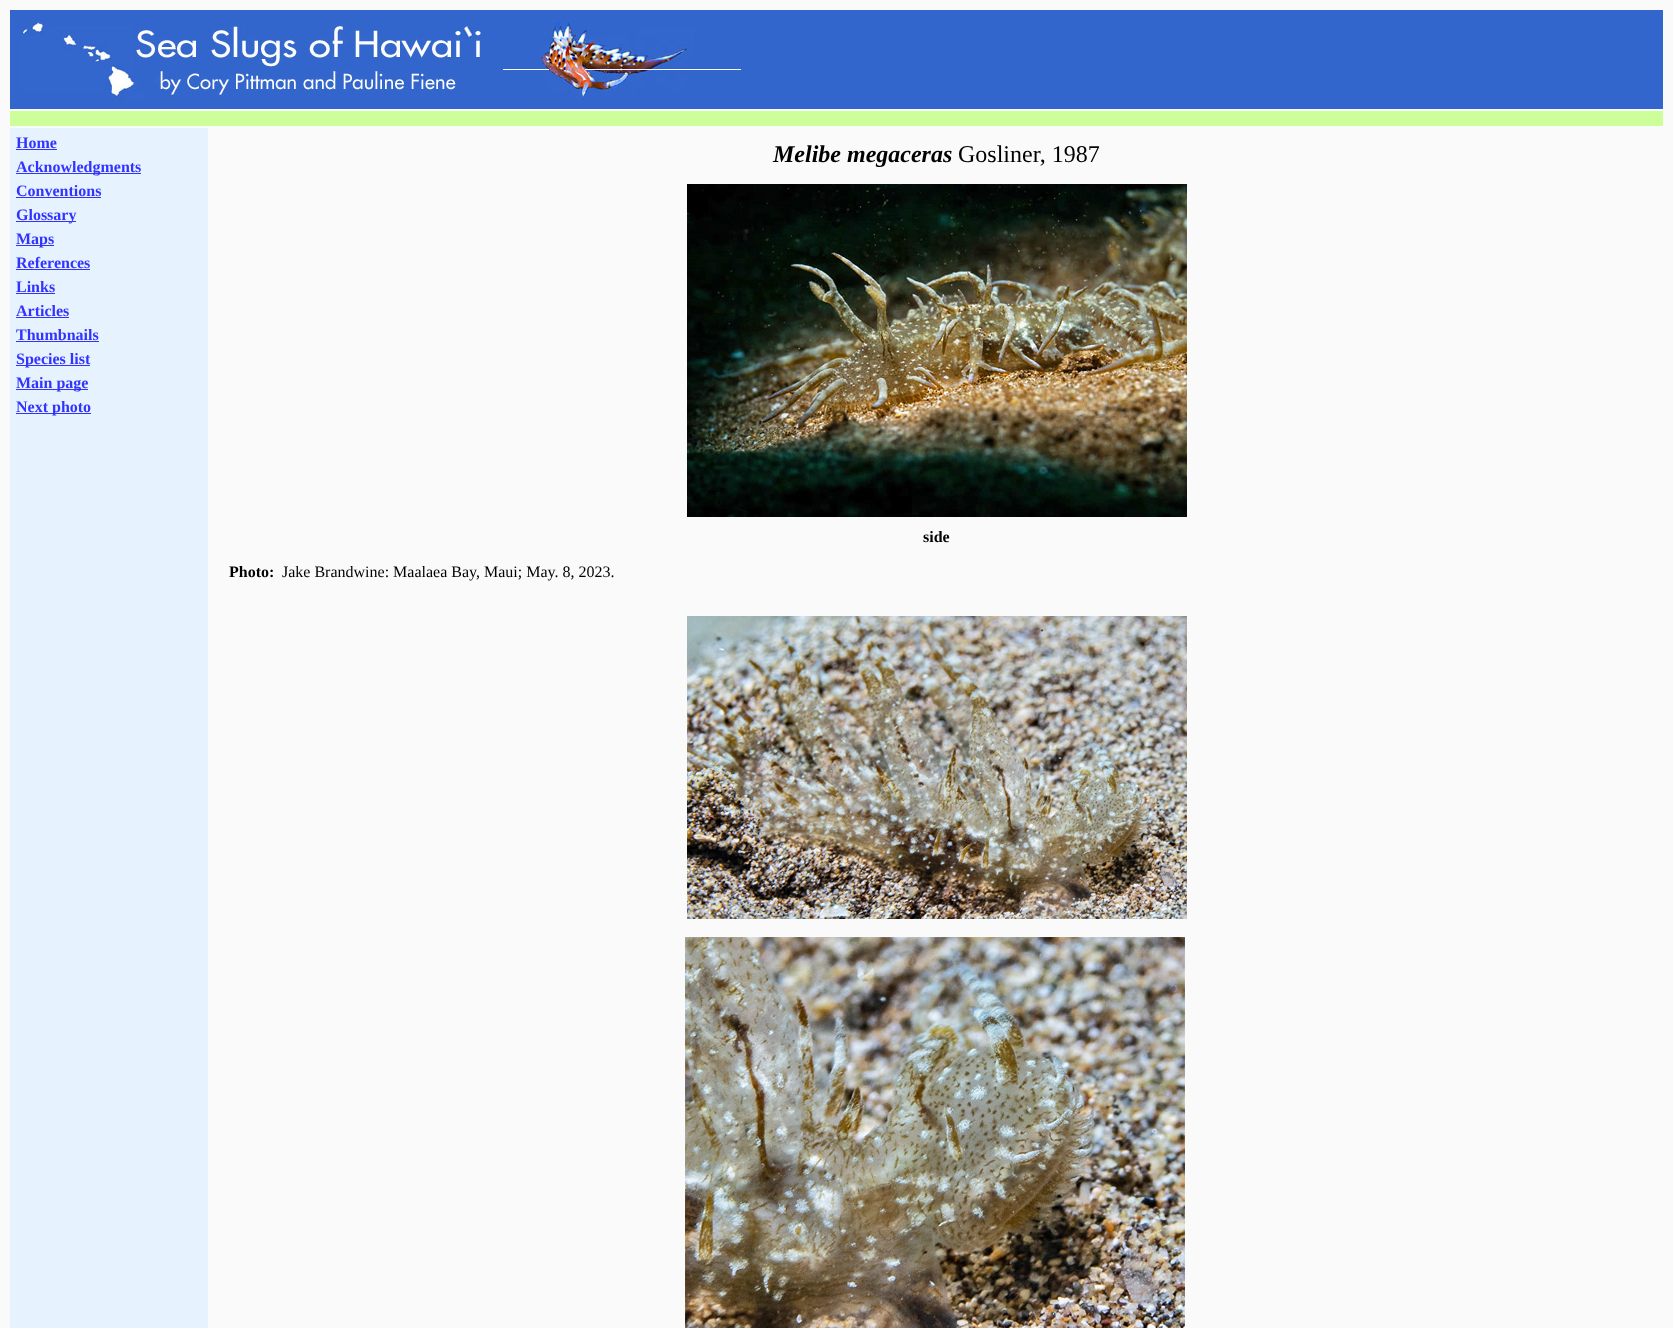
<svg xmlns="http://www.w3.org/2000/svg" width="1673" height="1328">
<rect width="100%" height="100%" fill="#fafafa"/>
<rect x="10" y="10" width="1653" height="99" fill="#36c"/>
<image x="20" y="20" width="728" height="80" href="media/1.png"/>
<rect x="10" y="111" width="1653" height="15" fill="#cf9"/>
<rect x="10" y="128" width="198" height="1200" fill="#e6f3ff"/>
<text x="16" y="148" style="font-family:Liberation Serif;font-size:16px;font-weight:bold;fill:#33f">Home</text>
<rect x="16" y="149" width="41" height="1" fill="#33f"/>
<rect x="16" y="173" width="125" height="1" fill="#33f"/>
<text x="16" y="172" style="font-family:Liberation Serif;font-size:16px;font-weight:bold;fill:#33f">Acknowledgments</text>
<text x="16" y="196" style="font-family:Liberation Serif;font-size:16px;font-weight:bold;fill:#33f">Conventions</text>
<rect x="16" y="197" width="85" height="1" fill="#33f"/>
<rect x="16" y="221" width="60" height="1" fill="#33f"/>
<text x="16" y="220" style="font-family:Liberation Serif;font-size:16px;font-weight:bold;fill:#33f">Glossary</text>
<rect x="16" y="245" width="38" height="1" fill="#33f"/>
<text x="16" y="244" style="font-family:Liberation Serif;font-size:16px;font-weight:bold;fill:#33f">Maps</text>
<text x="16" y="268" style="font-family:Liberation Serif;font-size:16px;font-weight:bold;fill:#33f">References</text>
<rect x="16" y="269" width="74" height="1" fill="#33f"/>
<text x="16" y="292" style="font-family:Liberation Serif;font-size:16px;font-weight:bold;fill:#33f">Links</text>
<rect x="16" y="293" width="39" height="1" fill="#33f"/>
<text x="16" y="316" style="font-family:Liberation Serif;font-size:16px;font-weight:bold;fill:#33f">Articles</text>
<rect x="16" y="317" width="53" height="1" fill="#33f"/>
<text x="16" y="340" style="font-family:Liberation Serif;font-size:16px;font-weight:bold;fill:#33f">Thumbnails</text>
<rect x="16" y="341" width="83" height="1" fill="#33f"/>
<rect x="16" y="365" width="74" height="1" fill="#33f"/>
<text x="16" y="364" style="font-family:Liberation Serif;font-size:16px;font-weight:bold;fill:#33f">Species list</text>
<rect x="16" y="389" width="72" height="1" fill="#33f"/>
<text x="16" y="388" style="font-family:Liberation Serif;font-size:16px;font-weight:bold;fill:#33f">Main page</text>
<rect x="16" y="413" width="75" height="1" fill="#33f"/>
<text x="16" y="412" style="font-family:Liberation Serif;font-size:16px;font-weight:bold;fill:#33f">Next photo</text>
<text x="773" y="162" style="font-family:Liberation Serif;font-size:24px;font-weight:bold;font-style:italic;fill:#000">Melibe megaceras</text>
<text x="958" y="162" style="font-family:Liberation Serif;font-size:24px;fill:#000">Gosliner, 1987</text>
<image x="687" y="184" width="500" height="333" href="media/2.png"/>
<text x="923" y="542" style="font-family:Liberation Serif;font-size:16px;font-weight:bold;fill:#000">side</text>
<text x="229" y="577" style="font-family:Liberation Serif;font-size:16px;font-weight:bold;fill:#000">Photo:</text>
<text x="282" y="577" style="font-family:Liberation Serif;font-size:16px;fill:#000">Jake Brandwine: Maalaea Bay, Maui; May. 8, 2023.</text>
<image x="687" y="616" width="500" height="303" href="media/3.png"/>
<image x="685" y="937" width="500" height="391" href="media/4.png"/>
</svg>
